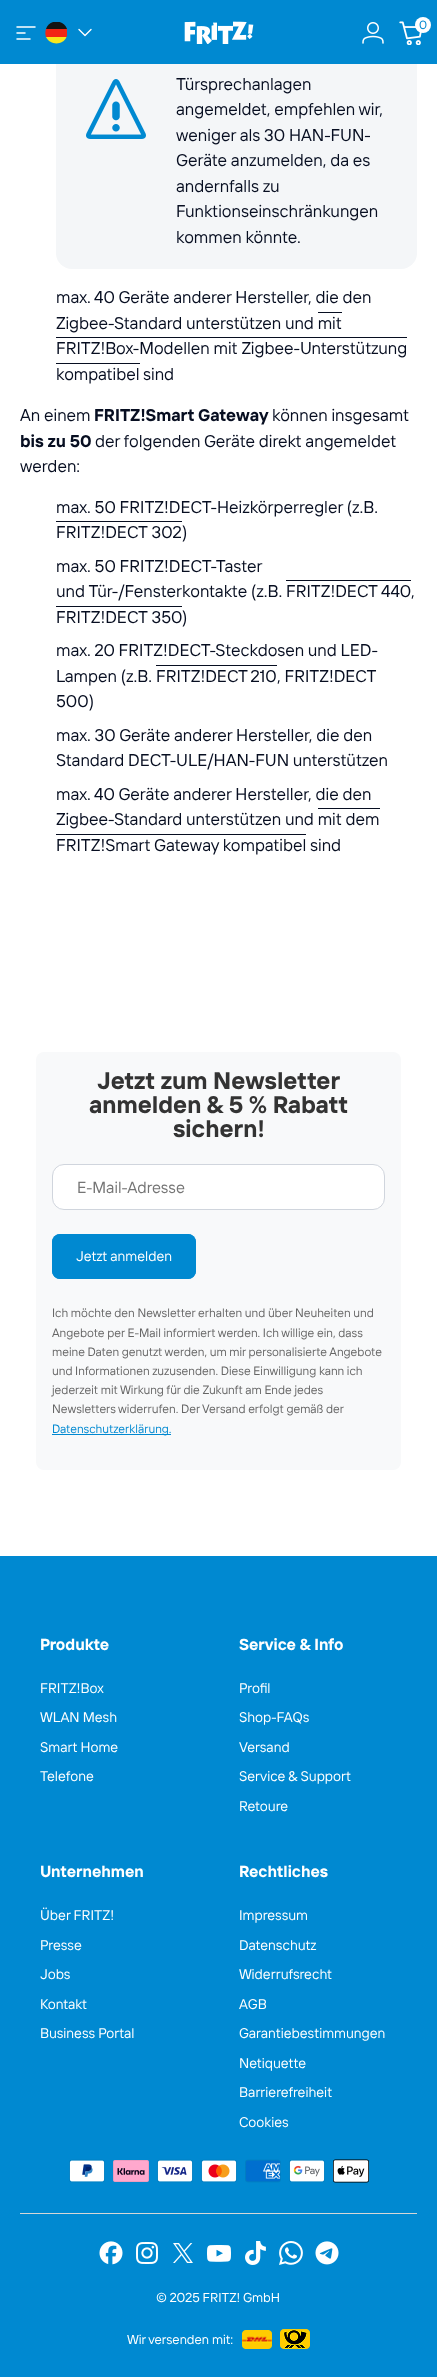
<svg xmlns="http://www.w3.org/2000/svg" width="437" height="2377">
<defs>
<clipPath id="clip1"><rect x="45" y="22" width="22" height="22"/></clipPath>
</defs>
<rect width="100%" height="100%" fill="#fff"/>
<rect x="56" y="-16" width="361" height="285" rx="16" fill="#f4f6f8"/>
<rect width="437" height="64" fill="#0089d1"/>
<path d="M17 27h18m-18 6h8m-8 6h13" fill="none" stroke="#fff" stroke-width="1.5" stroke-linecap="round"/>
<g clip-path="url(#clip1)">
<path d="M66.5 28h-20c-1.5 3-1.5 6-.5 9h20.5c1.5-3 1.5-6 0-9z" fill="#f32614"/>
</g>
<path d="M66.5 37h-20.5c4 8.5 17 8.5 20.5 0z" fill="#f8e71c"/>
<g clip-path="url(#clip1)">
<path d="M56.5 21.5c4.5 0 9 3 10.5 7.5h-21c1.5-4.5 5.5-7.5 10.5-7.5z" fill="#131413"/>
</g>
<path d="M79 29.5l6 6l6-6" fill="none" stroke="#fff" stroke-width="1.4" stroke-linecap="round" stroke-linejoin="round"/>
<image x="184" y="21" width="70" height="23" href="media/1.png"/>
<image x="362" y="22" width="22" height="22" href="media/2.png"/>
<image x="399" y="21" width="23" height="24" href="media/3.png"/>
<circle cx="423" cy="25" r="8" fill="#fff"/>
<text x="419" y="29" style="font-family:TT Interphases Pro;font-size:12px;fill:#0089d1">0</text>
<image x="86" y="79" width="60" height="60" href="media/4.png"/>
<text x="176" y="90" style="font-family:TT Interphases Pro;font-size:17px;fill:#070e21">Türsprechanlagen</text>
<text x="176" y="115" style="font-family:TT Interphases Pro;font-size:17px;fill:#070e21">angemeldet, empfehlen wir,</text>
<text x="176" y="141" style="font-family:TT Interphases Pro;font-size:17px;fill:#070e21">weniger als 30 HAN-FUN-</text>
<text x="176" y="166" style="font-family:TT Interphases Pro;font-size:17px;fill:#070e21">Geräte anzumelden, da es</text>
<text x="176" y="192" style="font-family:TT Interphases Pro;font-size:17px;fill:#070e21">andernfalls zu</text>
<text x="176" y="217" style="font-family:TT Interphases Pro;font-size:17px;fill:#070e21">Funktionseinschränkungen</text>
<text x="176" y="243" style="font-family:TT Interphases Pro;font-size:17px;fill:#070e21">kommen könnte.</text>
<text x="56" y="303" style="font-family:TT Interphases Pro;font-size:17px;fill:#070e21">max. 40 Geräte anderer Hersteller, die den</text>
<text x="56" y="329" style="font-family:TT Interphases Pro;font-size:17px;fill:#070e21">Zigbee-Standard unterstützen und mit</text>
<text x="56" y="354" style="font-family:TT Interphases Pro;font-size:17px;fill:#070e21">FRITZ!Box-Modellen mit Zigbee-Unterstützung</text>
<rect x="318" y="312" width="24" height="1" fill="#070e21"/>
<rect x="56" y="337" width="351" height="1" fill="#070e21"/>
<text x="56" y="380" style="font-family:TT Interphases Pro;font-size:17px;fill:#070e21">kompatibel</text>
<rect x="56" y="363" width="84" height="1" fill="#070e21"/>
<text x="143" y="380" style="font-family:TT Interphases Pro;font-size:17px;fill:#070e21">sind</text>
<text x="20" y="421" style="font-family:TT Interphases Pro;font-size:17px;fill:#070e21">An einem</text>
<text x="94" y="421" style="font-family:TT Interphases Pro;font-size:17px;font-weight:bold;fill:#070e21">FRITZ!Smart Gateway</text>
<text x="272" y="421" style="font-family:TT Interphases Pro;font-size:17px;fill:#070e21">können insgesamt</text>
<text x="20" y="447" style="font-family:TT Interphases Pro;font-size:17px;font-weight:bold;fill:#070e21">bis zu 50</text>
<text x="95" y="447" style="font-family:TT Interphases Pro;font-size:17px;fill:#070e21">der folgenden Geräte direkt angemeldet</text>
<text x="20" y="472" style="font-family:TT Interphases Pro;font-size:17px;fill:#070e21">werden:</text>
<text x="56" y="513" style="font-family:TT Interphases Pro;font-size:17px;fill:#070e21">max. 50 FRITZ!DECT-Heizkörperregler (z.B.</text>
<text x="56" y="538" style="font-family:TT Interphases Pro;font-size:17px;fill:#070e21">FRITZ!DECT 302</text>
<rect x="56" y="521" width="126" height="1" fill="#070e21"/>
<text x="182" y="538" style="font-family:TT Interphases Pro;font-size:17px;fill:#070e21">)</text>
<text x="56" y="572" style="font-family:TT Interphases Pro;font-size:17px;fill:#070e21">max. 50 FRITZ!DECT-Taster</text>
<text x="56" y="597" style="font-family:TT Interphases Pro;font-size:17px;fill:#070e21">und Tür-/Fensterkontakte (z.B.</text>
<text x="286" y="597" style="font-family:TT Interphases Pro;font-size:17px;fill:#070e21">FRITZ!DECT 440</text>
<rect x="286" y="580" width="125" height="1" fill="#070e21"/>
<text x="411" y="597" style="font-family:TT Interphases Pro;font-size:17px;fill:#070e21">,</text>
<text x="56" y="623" style="font-family:TT Interphases Pro;font-size:17px;fill:#070e21">FRITZ!DECT 350</text>
<rect x="56" y="606" width="126" height="1" fill="#070e21"/>
<text x="182" y="623" style="font-family:TT Interphases Pro;font-size:17px;fill:#070e21">)</text>
<text x="56" y="656" style="font-family:TT Interphases Pro;font-size:17px;fill:#070e21">max. 20 FRITZ!DECT-Steckdosen und LED-</text>
<text x="56" y="682" style="font-family:TT Interphases Pro;font-size:17px;fill:#070e21">Lampen (z.B.</text>
<text x="156" y="682" word-spacing="-1" style="font-family:TT Interphases Pro;font-size:17px;fill:#070e21">FRITZ!DECT 210</text>
<rect x="156" y="665" width="121" height="1" fill="#070e21"/>
<text x="277" y="682" style="font-family:TT Interphases Pro;font-size:17px;fill:#070e21">, FRITZ!DECT</text>
<text x="56" y="707" style="font-family:TT Interphases Pro;font-size:17px;fill:#070e21">500)</text>
<text x="56" y="741" style="font-family:TT Interphases Pro;font-size:17px;fill:#070e21">max. 30 Geräte anderer Hersteller, die den</text>
<text x="56" y="766" style="font-family:TT Interphases Pro;font-size:17px;fill:#070e21">Standard DECT-ULE/HAN-FUN unterstützen</text>
<text x="56" y="800" style="font-family:TT Interphases Pro;font-size:17px;fill:#070e21">max. 40 Geräte anderer Hersteller, die den</text>
<text x="56" y="825" style="font-family:TT Interphases Pro;font-size:17px;fill:#070e21">Zigbee-Standard unterstützen und mit dem</text>
<text x="56" y="851" style="font-family:TT Interphases Pro;font-size:17px;fill:#070e21">FRITZ!Smart Gateway kompatibel</text>
<rect x="318" y="808" width="62" height="1" fill="#070e21"/>
<rect x="56" y="834" width="250" height="1" fill="#070e21"/>
<text x="310" y="851" style="font-family:TT Interphases Pro;font-size:17px;fill:#070e21">sind</text>
<rect x="36" y="1052" width="365" height="418" rx="8" fill="#f8f9fa"/>
<text x="97" y="1089" style="font-family:TT Interphases Pro;font-size:24px;font-weight:bold;fill:#333">Jetzt zum Newsletter</text>
<text x="89" y="1113" style="font-family:TT Interphases Pro;font-size:24px;font-weight:bold;fill:#333">anmelden &amp; 5 % Rabatt</text>
<text x="173" y="1137" style="font-family:TT Interphases Pro;font-size:24px;font-weight:bold;fill:#333">sichern!</text>
<rect x="52.5" y="1164.5" width="332" height="45" rx="11.5" fill="#fff" stroke="#d0d5dd"/>
<text x="77" y="1193" style="font-family:TT Interphases Pro;font-size:16px;fill:#757575">E-Mail-Adresse</text>
<rect x="52" y="1234" width="144" height="45" rx="8" fill="#0089d1"/>
<rect x="52.5" y="1234.5" width="143" height="44" rx="7.5" fill="none" stroke="#0089d1"/>
<text x="76" y="1261" style="font-family:TT Interphases Pro;font-size:14px;fill:#fff">Jetzt anmelden</text>
<text x="52" y="1317" style="font-family:TT Interphases Pro;font-size:12px;fill:#666">Ich möchte den Newsletter erhalten und über Neuheiten und</text>
<text x="52" y="1337" style="font-family:TT Interphases Pro;font-size:12px;fill:#666">Angebote per E-Mail informiert werden. Ich willige ein, dass</text>
<text x="52" y="1356" style="font-family:TT Interphases Pro;font-size:12px;fill:#666">meine Daten genutzt werden, um mir personalisierte Angebote</text>
<text x="52" y="1375" style="font-family:TT Interphases Pro;font-size:12px;fill:#666">und Informationen zuzusenden. Diese Einwilligung kann ich</text>
<text x="52" y="1394" style="font-family:TT Interphases Pro;font-size:12px;fill:#666">jederzeit mit Wirkung für die Zukunft am Ende jedes</text>
<text x="52" y="1413" style="font-family:TT Interphases Pro;font-size:12px;fill:#666">Newsletters widerrufen. Der Versand erfolgt gemäß der</text>
<rect x="52" y="1434" width="119" height="1" fill="#0089d1"/>
<text x="52" y="1433" style="font-family:TT Interphases Pro;font-size:12px;fill:#0089d1">Datenschutzerklärung.</text>
<rect y="1556" width="437" height="821" fill="#0089d1"/>
<text x="40" y="1650" style="font-family:TT Interphases Pro;font-size:16px;font-weight:bold;fill:#fff">Produkte</text>
<text x="40" y="1693" style="font-family:TT Interphases Pro;font-size:14px;fill:#fff">FRITZ!Box</text>
<text x="40" y="1722" style="font-family:TT Interphases Pro;font-size:14px;fill:#fff">WLAN Mesh</text>
<text x="40" y="1752" style="font-family:TT Interphases Pro;font-size:14px;fill:#fff">Smart Home</text>
<text x="40" y="1781" style="font-family:TT Interphases Pro;font-size:14px;fill:#fff">Telefone</text>
<text x="239" y="1650" style="font-family:TT Interphases Pro;font-size:16px;font-weight:bold;fill:#fff">Service &amp; Info</text>
<text x="239" y="1693" style="font-family:TT Interphases Pro;font-size:14px;fill:#fff">Profil</text>
<text x="239" y="1722" style="font-family:TT Interphases Pro;font-size:14px;fill:#fff">Shop-FAQs</text>
<text x="239" y="1752" style="font-family:TT Interphases Pro;font-size:14px;fill:#fff">Versand</text>
<text x="239" y="1781" style="font-family:TT Interphases Pro;font-size:14px;fill:#fff">Service &amp; Support</text>
<text x="239" y="1811" style="font-family:TT Interphases Pro;font-size:14px;fill:#fff">Retoure</text>
<text x="40" y="1877" style="font-family:TT Interphases Pro;font-size:16px;font-weight:bold;fill:#fff">Unternehmen</text>
<text x="40" y="1920" style="font-family:TT Interphases Pro;font-size:14px;fill:#fff">Über FRITZ!</text>
<text x="40" y="1950" style="font-family:TT Interphases Pro;font-size:14px;fill:#fff">Presse</text>
<text x="40" y="1979" style="font-family:TT Interphases Pro;font-size:14px;fill:#fff">Jobs</text>
<text x="40" y="2009" style="font-family:TT Interphases Pro;font-size:14px;fill:#fff">Kontakt</text>
<text x="40" y="2038" style="font-family:TT Interphases Pro;font-size:14px;fill:#fff">Business Portal</text>
<text x="239" y="1877" style="font-family:TT Interphases Pro;font-size:16px;font-weight:bold;fill:#fff">Rechtliches</text>
<text x="239" y="1920" style="font-family:TT Interphases Pro;font-size:14px;fill:#fff">Impressum</text>
<text x="239" y="1950" style="font-family:TT Interphases Pro;font-size:14px;fill:#fff">Datenschutz</text>
<text x="239" y="1979" style="font-family:TT Interphases Pro;font-size:14px;fill:#fff">Widerrufsrecht</text>
<text x="239" y="2009" style="font-family:TT Interphases Pro;font-size:14px;fill:#fff">AGB</text>
<text x="239" y="2038" style="font-family:TT Interphases Pro;font-size:14px;fill:#fff">Garantiebestimmungen</text>
<text x="239" y="2068" style="font-family:TT Interphases Pro;font-size:14px;fill:#fff">Netiquette</text>
<text x="239" y="2097" style="font-family:TT Interphases Pro;font-size:14px;fill:#fff">Barrierefreiheit</text>
<text x="239" y="2127" style="font-family:TT Interphases Pro;font-size:14px;fill:#fff">Cookies</text>
<image x="69" y="2159" width="36" height="24" href="media/5.png"/>
<image x="113" y="2160" width="36" height="22" href="media/6.png"/>
<image x="157" y="2159" width="36" height="24" href="media/7.png"/>
<image x="201" y="2159" width="36" height="24" href="media/8.png"/>
<image x="245" y="2159" width="36" height="24" href="media/9.png"/>
<image x="289" y="2159" width="36" height="24" href="media/10.png"/>
<image x="333" y="2159" width="36" height="24" href="media/11.png"/>
<rect x="20" y="2213" width="397" height="1" fill="#d6d6d6"/>
<image x="99" y="2241" width="24" height="24" href="media/12.png"/>
<image x="136" y="2242" width="22" height="22" href="media/13.png"/>
<image x="173" y="2243" width="20" height="20" href="media/14.png"/>
<image x="207" y="2245" width="24" height="17" href="media/15.png"/>
<image x="245" y="2241" width="21" height="24" href="media/16.png"/>
<image x="279" y="2241" width="24" height="24" href="media/17.png"/>
<image x="315" y="2241" width="24" height="24" href="media/18.png"/>
<text x="156" y="2302" style="font-family:TT Interphases Pro;font-size:13px;fill:#fff">© 2025 FRITZ! GmbH</text>
<text x="127" y="2344" style="font-family:TT Interphases Pro;font-size:13px;fill:#fff">Wir versenden mit:</text>
<image x="242" y="2330" width="30" height="19" href="media/19.png"/>
<image x="280" y="2329" width="30" height="20" href="media/20.png"/>
</svg>
